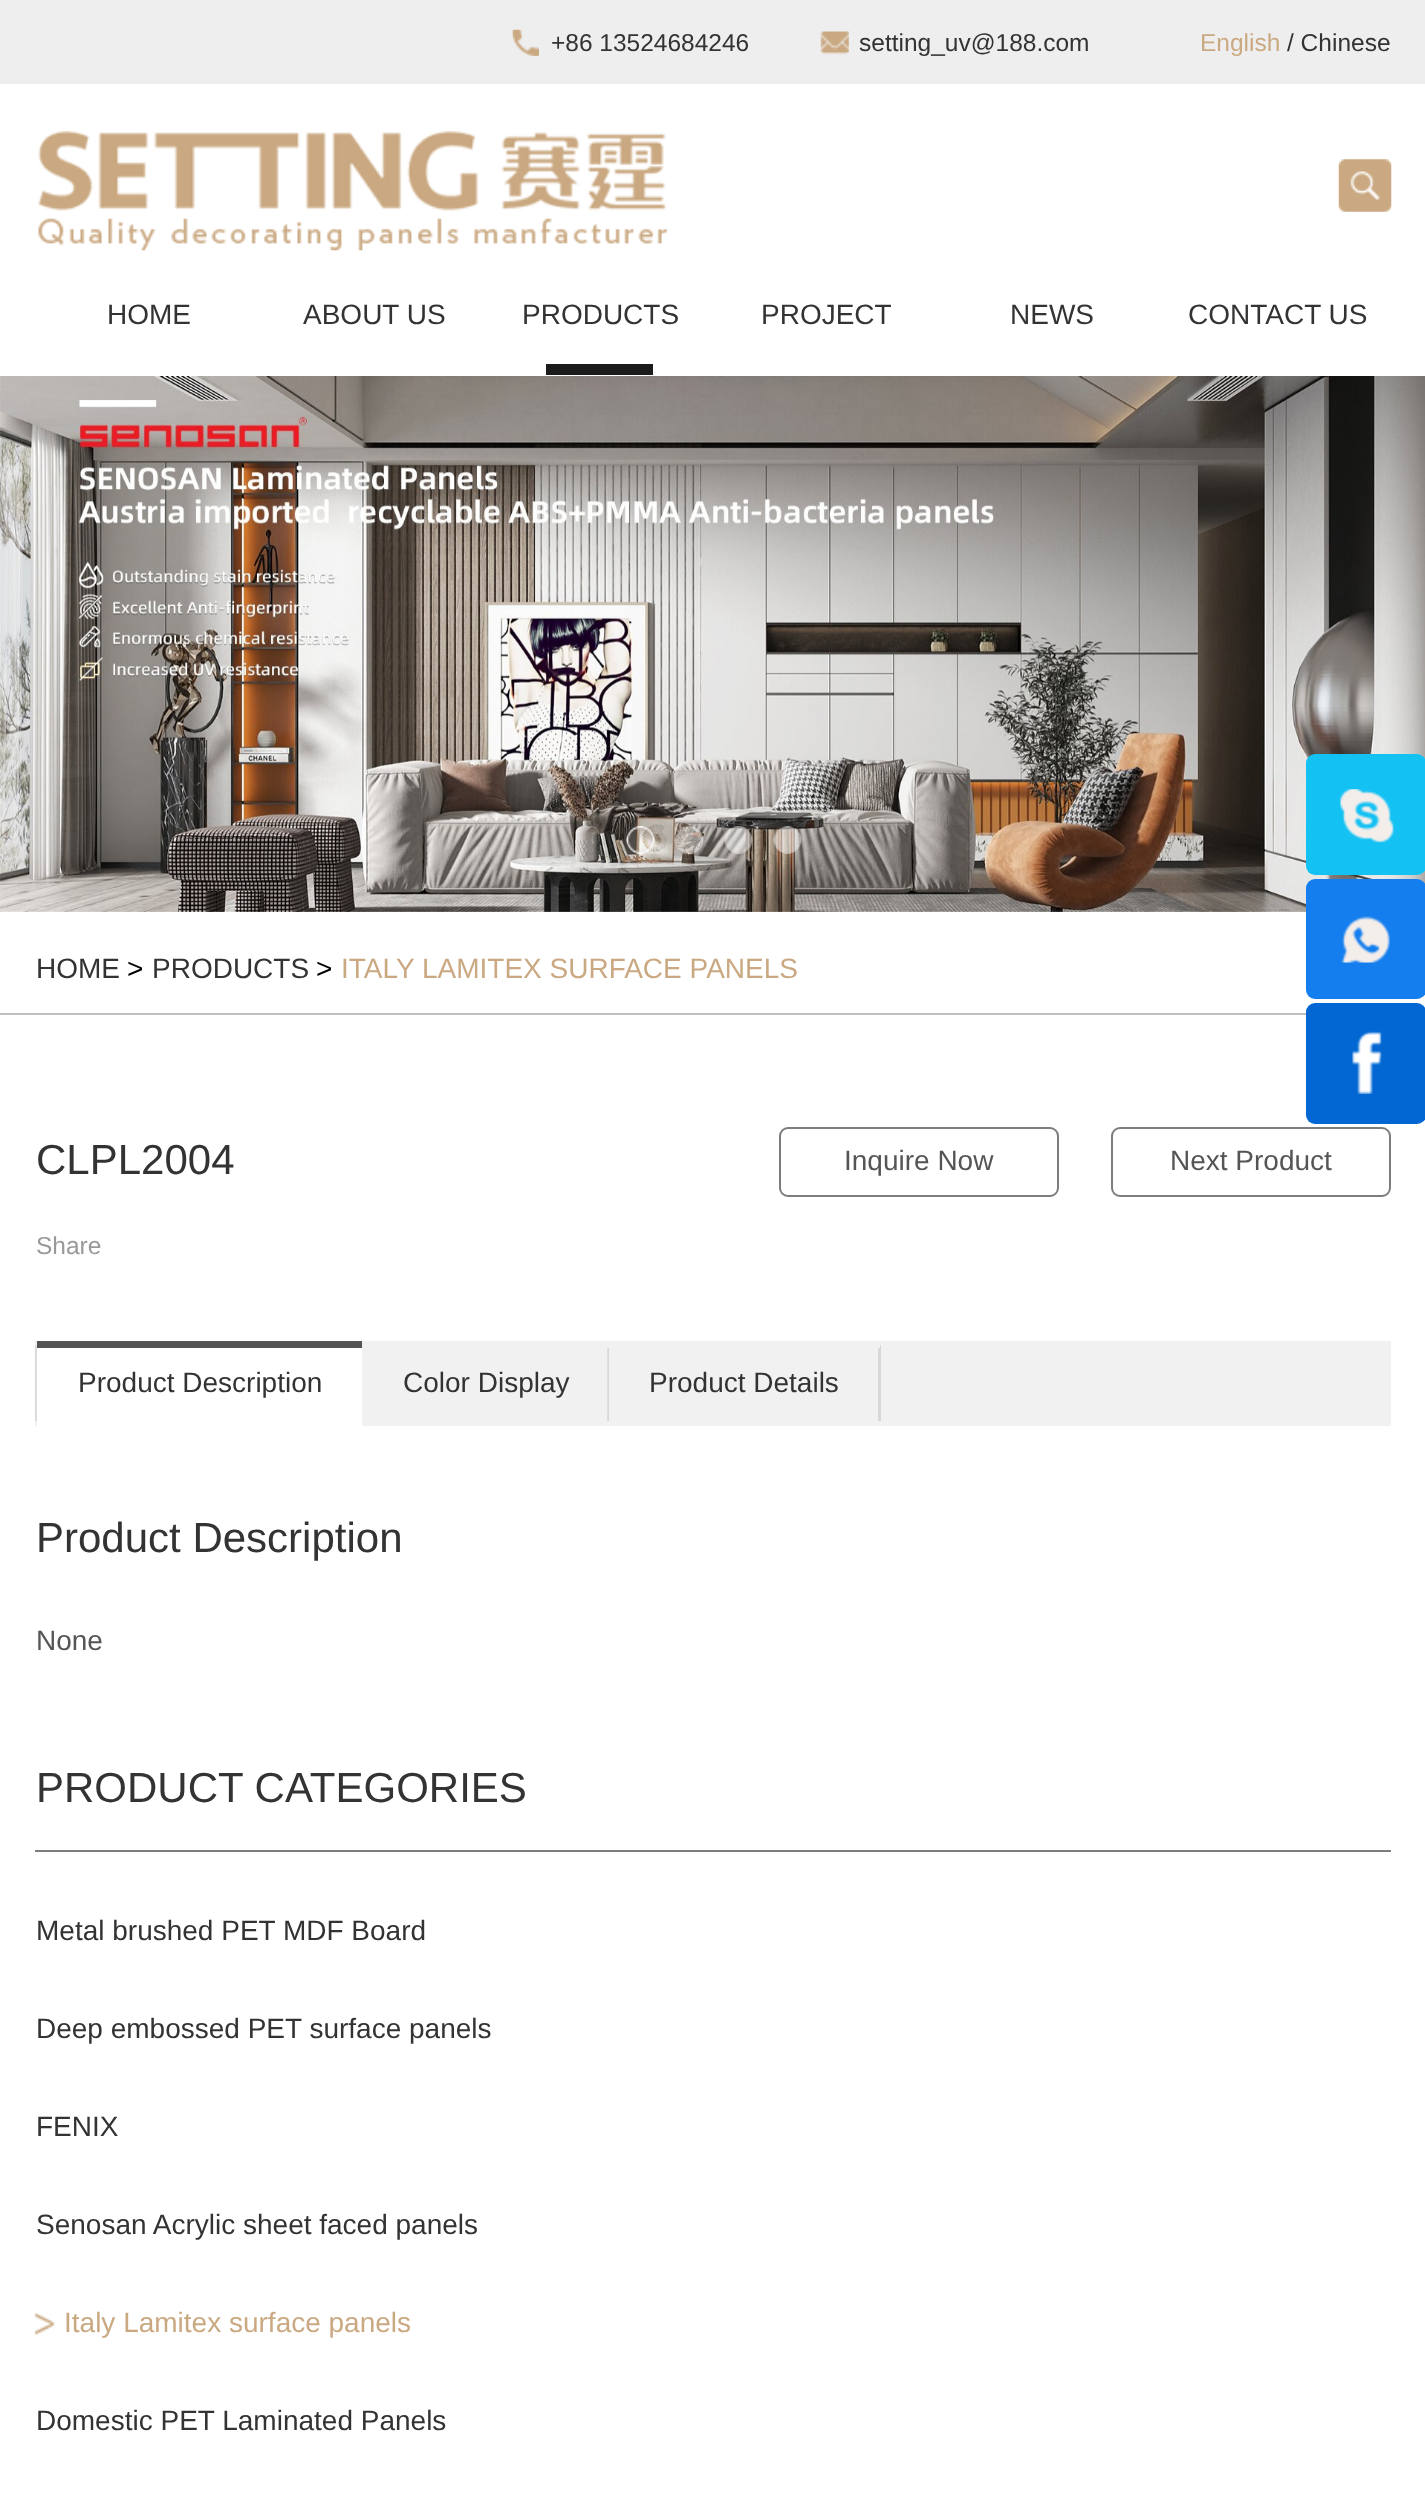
<svg xmlns="http://www.w3.org/2000/svg" width="1425" height="2514">
<rect width="100%" height="100%" fill="#fff"/>
<rect width="1425" height="84" fill="#eee"/>
<image x="512" y="29" width="27" height="27" href="media/1.png"/>
<text x="551" y="51" style="font-family:Liberation Sans;font-size:24.5px;fill:#333">+86 13524684246</text>
<image x="820" y="31" width="29" height="24" href="media/2.png"/>
<text x="859" y="51" style="font-family:Liberation Sans;font-size:24.5px;fill:#333">setting_uv@188.com</text>
<text x="1200" y="51" style="font-family:Liberation Sans;font-size:24.5px;fill:#caa982">English</text>
<text x="1287" y="51" style="font-family:Liberation Sans;font-size:24.5px;fill:#333">/ Chinese</text>
<image x="38" y="131" width="629" height="120" href="media/3.png"/>
<image x="1338" y="159" width="54" height="53" href="media/4.png"/>
<text x="107" y="324" style="font-family:Liberation Sans;font-size:28px;fill:#333">HOME</text>
<text x="303" y="324" style="font-family:Liberation Sans;font-size:28px;fill:#333">ABOUT US</text>
<rect x="546" y="364" width="107" height="11" fill="#1b1b1b"/>
<text x="522" y="324" style="font-family:Liberation Sans;font-size:28px;fill:#333">PRODUCTS</text>
<text x="761" y="324" style="font-family:Liberation Sans;font-size:28px;fill:#333">PROJECT</text>
<text x="1010" y="324" style="font-family:Liberation Sans;font-size:28px;fill:#333">NEWS</text>
<text x="1188" y="324" style="font-family:Liberation Sans;font-size:28px;fill:#333">CONTACT US</text>
<image x="0" y="376" width="1425" height="536" href="media/5.png"/>
<image x="626" y="826" width="29" height="28" href="media/6.png"/>
<image x="675" y="826" width="29" height="28" href="media/7.png"/>
<image x="724" y="826" width="29" height="28" href="media/8.png"/>
<image x="773" y="826" width="29" height="28" href="media/9.png"/>
<rect y="1013" width="1306" height="2" fill="#bfbfbf"/>
<text x="36" y="978" style="font-family:Liberation Sans;font-size:28px;fill:#333">HOME</text>
<text x="127" y="978" style="font-family:Liberation Sans;font-size:28px;fill:#000">&gt;</text>
<text x="152" y="978" style="font-family:Liberation Sans;font-size:28px;fill:#333">PRODUCTS</text>
<text x="316" y="978" style="font-family:Liberation Sans;font-size:28px;fill:#000">&gt;</text>
<text x="341" y="978" style="font-family:Liberation Sans;font-size:28px;fill:#caa982">ITALY LAMITEX SURFACE PANELS</text>
<rect x="1306" y="754" width="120" height="121" rx="9" fill="#13c1f3"/>
<image x="1340" y="789" width="54" height="54" href="media/10.png"/>
<rect x="1306" y="879" width="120" height="120" rx="9" fill="#157eee"/>
<image x="1341" y="916" width="49" height="47" href="media/11.png"/>
<rect x="1306" y="1003" width="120" height="121" rx="9" fill="#0267d2"/>
<image x="1352" y="1031" width="30" height="63" href="media/12.png"/>
<text x="36" y="1174" style="font-family:Liberation Sans;font-size:42px;fill:#333">CLPL2004</text>
<rect x="780" y="1128" width="278" height="68" rx="8" fill="none" stroke="#7d7d7d" stroke-width="2"/>
<text x="844" y="1170" style="font-family:Liberation Sans;font-size:28px;fill:#555">Inquire Now</text>
<rect x="1112" y="1128" width="278" height="68" rx="8" fill="none" stroke="#7d7d7d" stroke-width="2"/>
<text x="1170" y="1170" style="font-family:Liberation Sans;font-size:28px;fill:#555">Next Product</text>
<text x="36" y="1254" style="font-family:Liberation Sans;font-size:24.5px;fill:#999">Share</text>
<rect x="35" y="1341" width="1356" height="85" fill="#f1f1f1"/>
<image x="35" y="1345" width="2" height="76" href="media/13.png"/>
<rect x="37" y="1348" width="325" height="78" fill="#fff"/>
<rect x="37" y="1341" width="325" height="7" fill="#535353"/>
<text x="78" y="1392" style="font-family:Liberation Sans;font-size:28px;fill:#333">Product Description</text>
<image x="607" y="1348" width="2" height="73" href="media/14.png"/>
<text x="403" y="1392" style="font-family:Liberation Sans;font-size:28px;fill:#333">Color Display</text>
<rect x="878" y="1345" width="3" height="76" fill="#d8d8d8"/>
<rect x="878" y="1345" width="2" height="3" fill="#f1f1f1"/>
<text x="649" y="1392" style="font-family:Liberation Sans;font-size:28px;fill:#333">Product Details</text>
<text x="36" y="1552" style="font-family:Liberation Sans;font-size:42px;fill:#333">Product Description</text>
<text x="36" y="1650" style="font-family:Liberation Sans;font-size:28px;fill:#555">None</text>
<rect x="35" y="1850" width="1356" height="2" fill="#7d7d7d"/>
<text x="36" y="1802" style="font-family:Liberation Sans;font-size:42px;fill:#333">PRODUCT CATEGORIES</text>
<text x="36" y="1940" style="font-family:Liberation Sans;font-size:28px;fill:#333">Metal brushed PET MDF Board</text>
<text x="36" y="2038" style="font-family:Liberation Sans;font-size:28px;fill:#333">Deep embossed PET surface panels</text>
<text x="36" y="2136" style="font-family:Liberation Sans;font-size:28px;fill:#333">FENIX</text>
<text x="36" y="2234" style="font-family:Liberation Sans;font-size:28px;fill:#333">Senosan Acrylic sheet faced panels</text>
<image x="35" y="2313" width="20" height="22" href="media/15.png"/>
<text x="64" y="2332" style="font-family:Liberation Sans;font-size:28px;fill:#caa982">Italy Lamitex surface panels</text>
<text x="36" y="2430" style="font-family:Liberation Sans;font-size:28px;fill:#333">Domestic PET Laminated Panels</text>
</svg>
